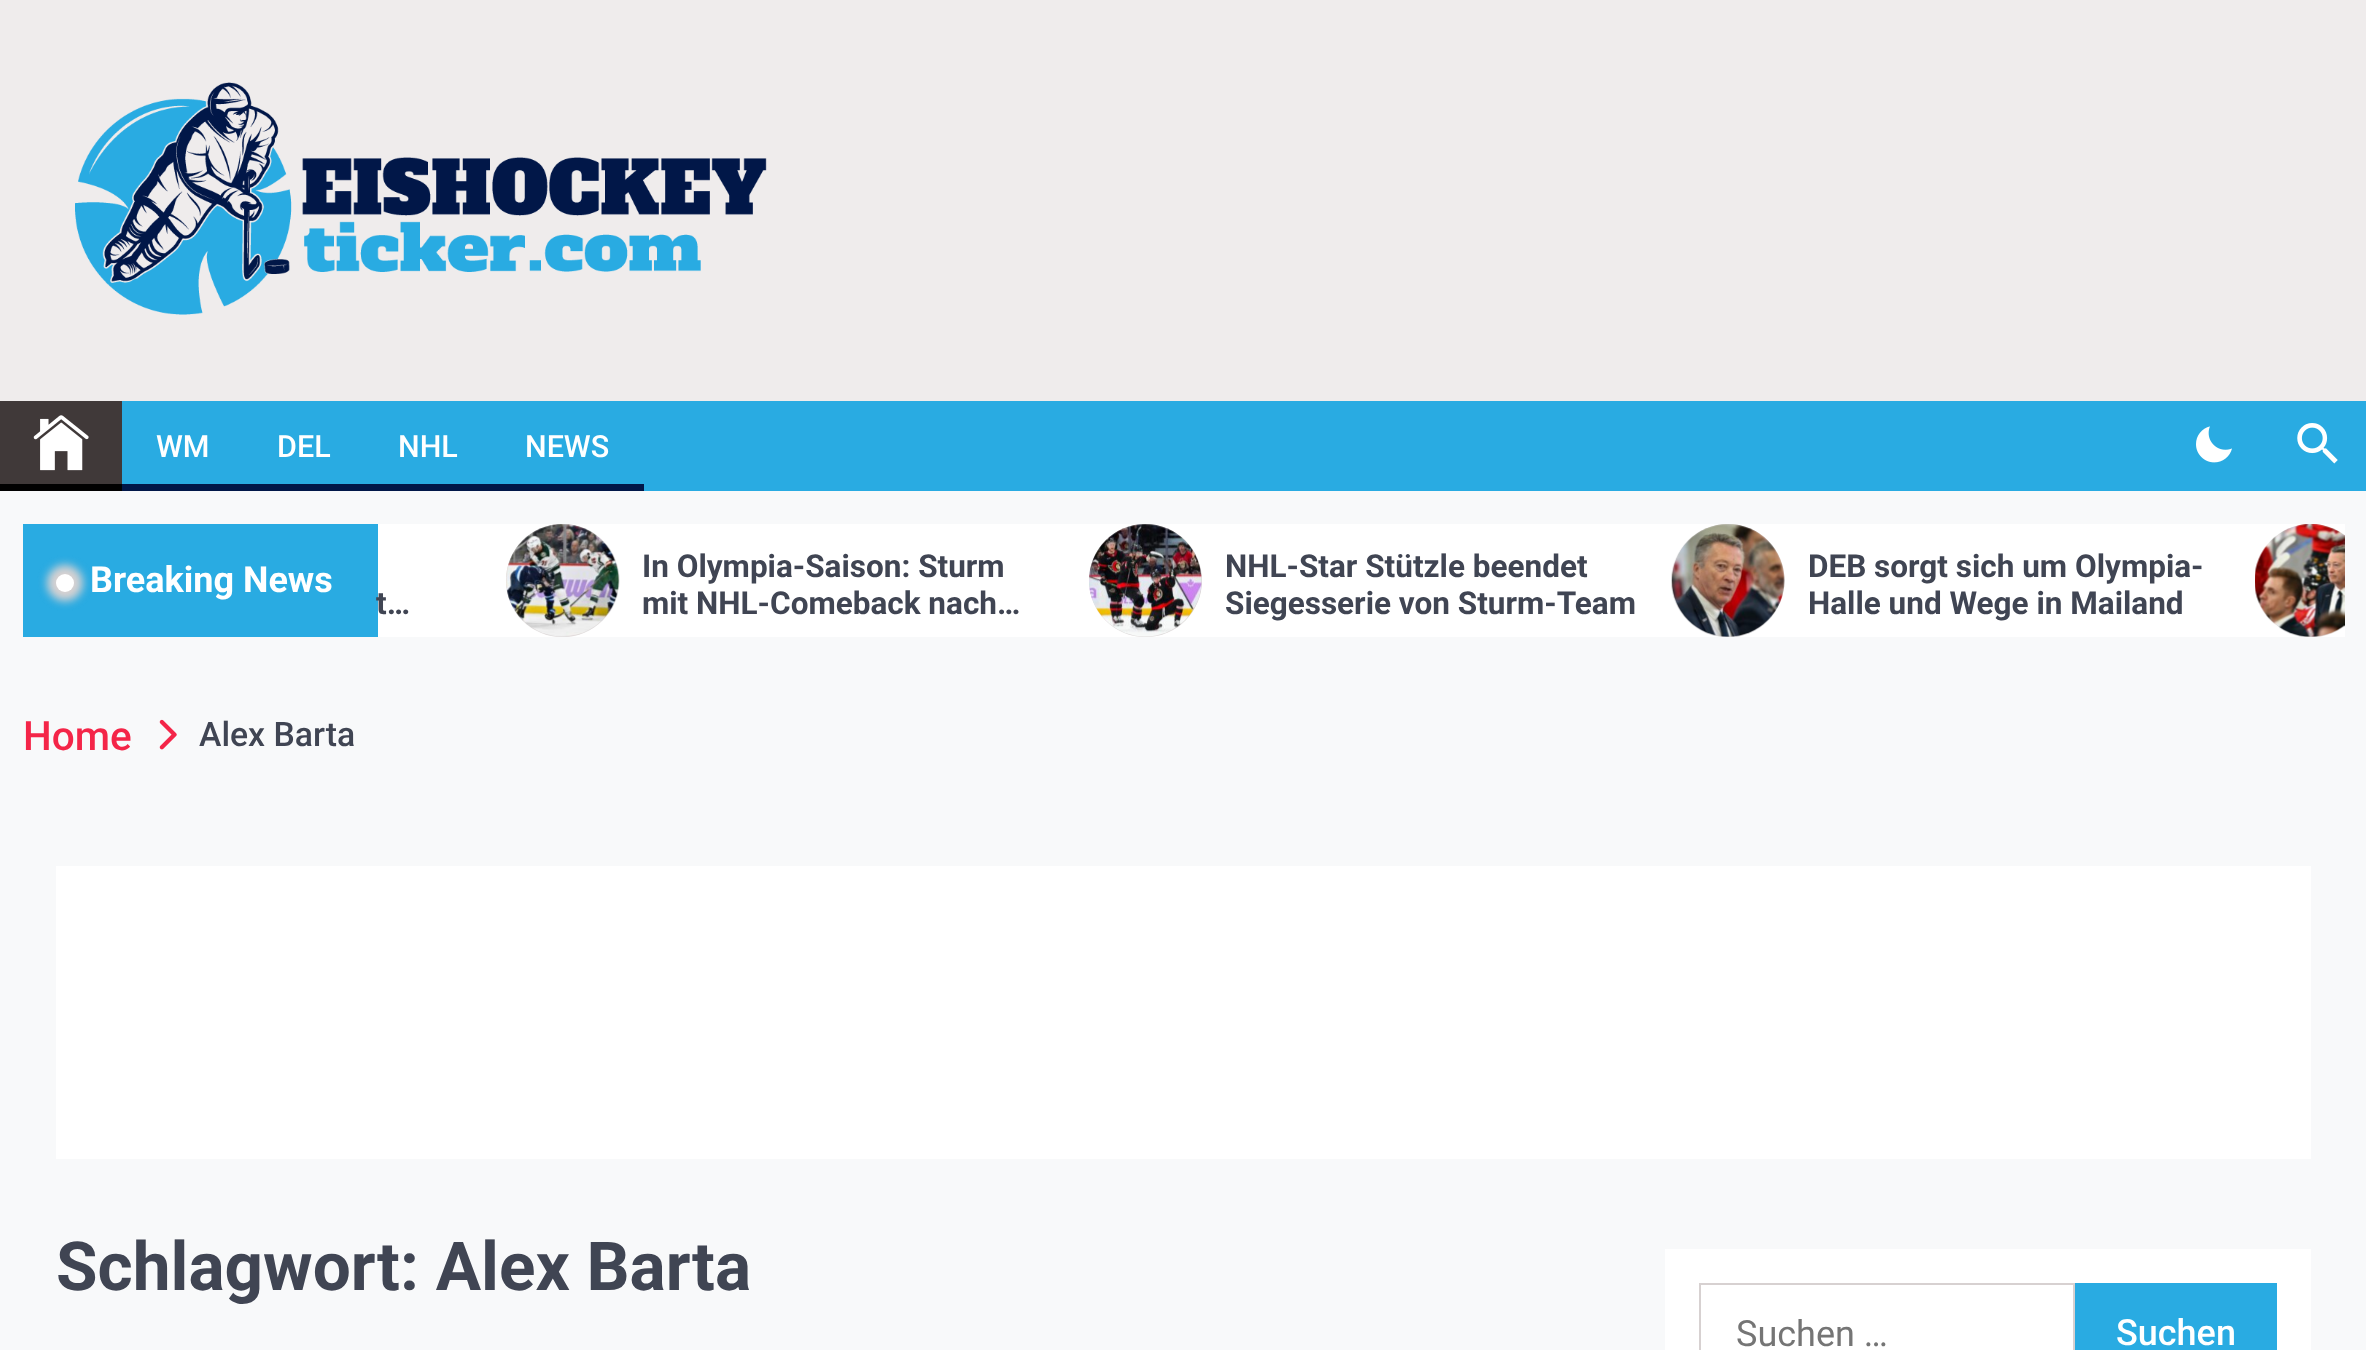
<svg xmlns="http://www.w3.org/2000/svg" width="2366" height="1350">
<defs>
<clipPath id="clip1"><rect x="378" y="524" width="1967" height="113"/></clipPath>
</defs>
<rect width="100%" height="100%" fill="#f8f9fa"/>
<rect width="2366" height="401" fill="#efecec"/>
<image x="75" y="82" width="692" height="233" href="media/1.png"/>
<rect x="122" y="401" width="2244" height="90" fill="#29abe2"/>
<rect y="401" width="122" height="83" fill="#403939"/>
<rect y="484" width="122" height="7" fill="#010101"/>
<image x="33" y="415" width="56" height="56" href="media/2.png"/>
<rect x="122" y="484" width="522" height="7" fill="#011748"/>
<text x="156" y="457" style="font-family:Roboto;font-size:30.5px;font-weight:500;fill:#fff">WM</text>
<text x="277" y="457" style="font-family:Roboto;font-size:30.5px;font-weight:500;fill:#fff">DEL</text>
<text x="398" y="457" style="font-family:Roboto;font-size:30.5px;font-weight:500;fill:#fff">NHL</text>
<text x="525" y="457" style="font-family:Roboto;font-size:30.5px;font-weight:500;fill:#fff">NEWS</text>
<image x="2196" y="426" width="36" height="37" href="media/3.png"/>
<image x="2297" y="423" width="41" height="41" href="media/4.png"/>
<rect x="378" y="524" width="1967" height="113" fill="#fff"/>
<rect x="23" y="524" width="355" height="113" fill="#29abe2"/>
<rect x="47" y="565" width="36" height="36" rx="18" fill="#d7d1d1" filter="blur(4.5px)"/>
<text x="90" y="592" style="font-family:Roboto;font-size:36px;font-weight:bold;fill:#fff">Breaking News</text>
<circle cx="65" cy="583" r="9" fill="#fff"/>
<text x="376" y="614" style="font-family:Roboto;font-size:31.5px;font-weight:bold;fill:#404553">t…</text>
<circle cx="562.5" cy="580.5" r="56.5" fill="#d7d1d1"/>
<image x="506" y="524" width="114" height="113" href="media/5.png"/>
<text x="642" y="577" style="font-family:Roboto;font-size:31.5px;font-weight:bold;fill:#404553">In Olympia-Saison: Sturm</text>
<text x="642" y="614" style="font-family:Roboto;font-size:31.5px;font-weight:bold;fill:#404553">mit NHL-Comeback nach…</text>
<circle cx="1145.5" cy="580.5" r="56.5" fill="#d7d1d1"/>
<image x="1089" y="524" width="113" height="113" href="media/6.png"/>
<text x="1225" y="577" style="font-family:Roboto;font-size:31.5px;font-weight:bold;fill:#404553">NHL-Star Stützle beendet</text>
<text x="1225" y="614" style="font-family:Roboto;font-size:31.5px;font-weight:bold;fill:#404553">Siegesserie von Sturm-Team</text>
<rect x="1672" y="524" width="112" height="113" rx="56" fill="#d7d1d1"/>
<image x="1671" y="524" width="114" height="113" href="media/7.png"/>
<text x="1808" y="577" style="font-family:Roboto;font-size:31.5px;font-weight:bold;fill:#404553">DEB sorgt sich um Olympia-</text>
<text x="1808" y="614" style="font-family:Roboto;font-size:31.5px;font-weight:bold;fill:#404553">Halle und Wege in Mailand</text>
<g clip-path="url(#clip1)">
<rect x="2255" y="524" width="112" height="113" rx="56" fill="#d7d1d1"/>
</g>
<image x="2255" y="524" width="90" height="113" href="media/8.png"/>
<text x="23" y="750" style="font-family:Roboto;font-size:40.5px;font-weight:500;fill:#f42548">Home</text>
<image x="159" y="719" width="18" height="31" href="media/9.png"/>
<text x="199" y="746" style="font-family:Roboto;font-size:33.75px;font-weight:500;fill:#404553">Alex Barta</text>
<rect x="56" y="866" width="2255" height="293" fill="#fff"/>
<text x="56" y="1290" style="font-family:Roboto;font-size:67.5px;font-weight:bold;fill:#404553">Schlagwort: Alex Barta</text>
<rect x="1665" y="1249" width="646" height="101" fill="#fff"/>
<rect x="1700" y="1284" width="374" height="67" fill="none" stroke="#d7d1d1" stroke-width="2"/>
<text x="1736" y="1346" style="font-family:Roboto;font-size:36px;fill:#757575">Suchen …</text>
<rect x="2075" y="1283" width="202" height="67" fill="#29abe2"/>
<text x="2116" y="1345" style="font-family:Roboto;font-size:36px;font-weight:500;fill:#fff">Suchen</text>
</svg>
